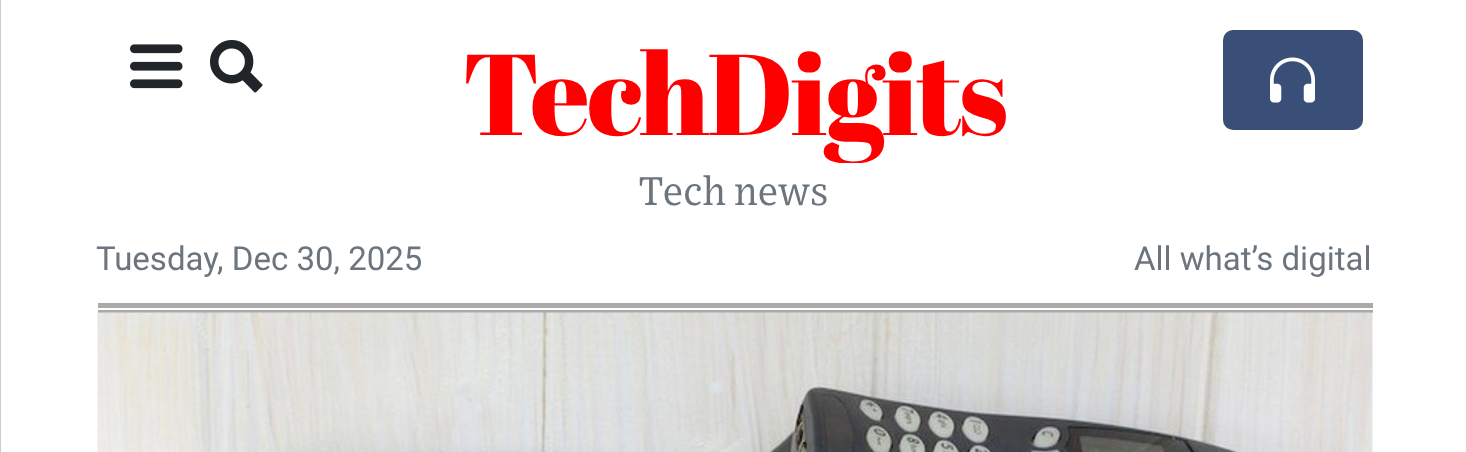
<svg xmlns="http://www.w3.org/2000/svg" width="1466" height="452">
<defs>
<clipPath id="clip1"><rect x="98" y="25" width="1275" height="138"/></clipPath>
</defs>
<rect width="100%" height="100%" fill="#fff"/>
<rect width="1" height="452" fill="#ccc"/>
<image x="130" y="44" width="53" height="45" href="media/1.png"/>
<image x="210" y="40" width="53" height="53" href="media/2.png"/>
<g clip-path="url(#clip1)">
<text x="462" y="135" style="font-family:Abril Fatface;font-size:114.5px;letter-spacing:-2.5px;fill:#f00">TechDigits</text>
</g>
<rect x="1223" y="30" width="140" height="100" rx="10" fill="#394f78"/>
<image x="1270" y="57" width="45" height="46" href="media/3.png"/>
<text x="638" y="205" style="font-family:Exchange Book;font-size:40px;fill:#6c757d">Tech news</text>
<text x="96" y="270" style="font-family:Roboto;font-size:33px;fill:#6c757d">Tuesday, Dec 30, 2025</text>
<text x="1134" y="270" style="font-family:Roboto;font-size:33px;fill:#6c757d">All what’s digital</text>
<rect x="98" y="303" width="1275" height="5" fill="#aaa"/>
<rect x="98" y="310" width="1275" height="3" fill="#aaa"/>
<image x="97" y="312" width="1276" height="140" href="media/4.png"/>
</svg>
